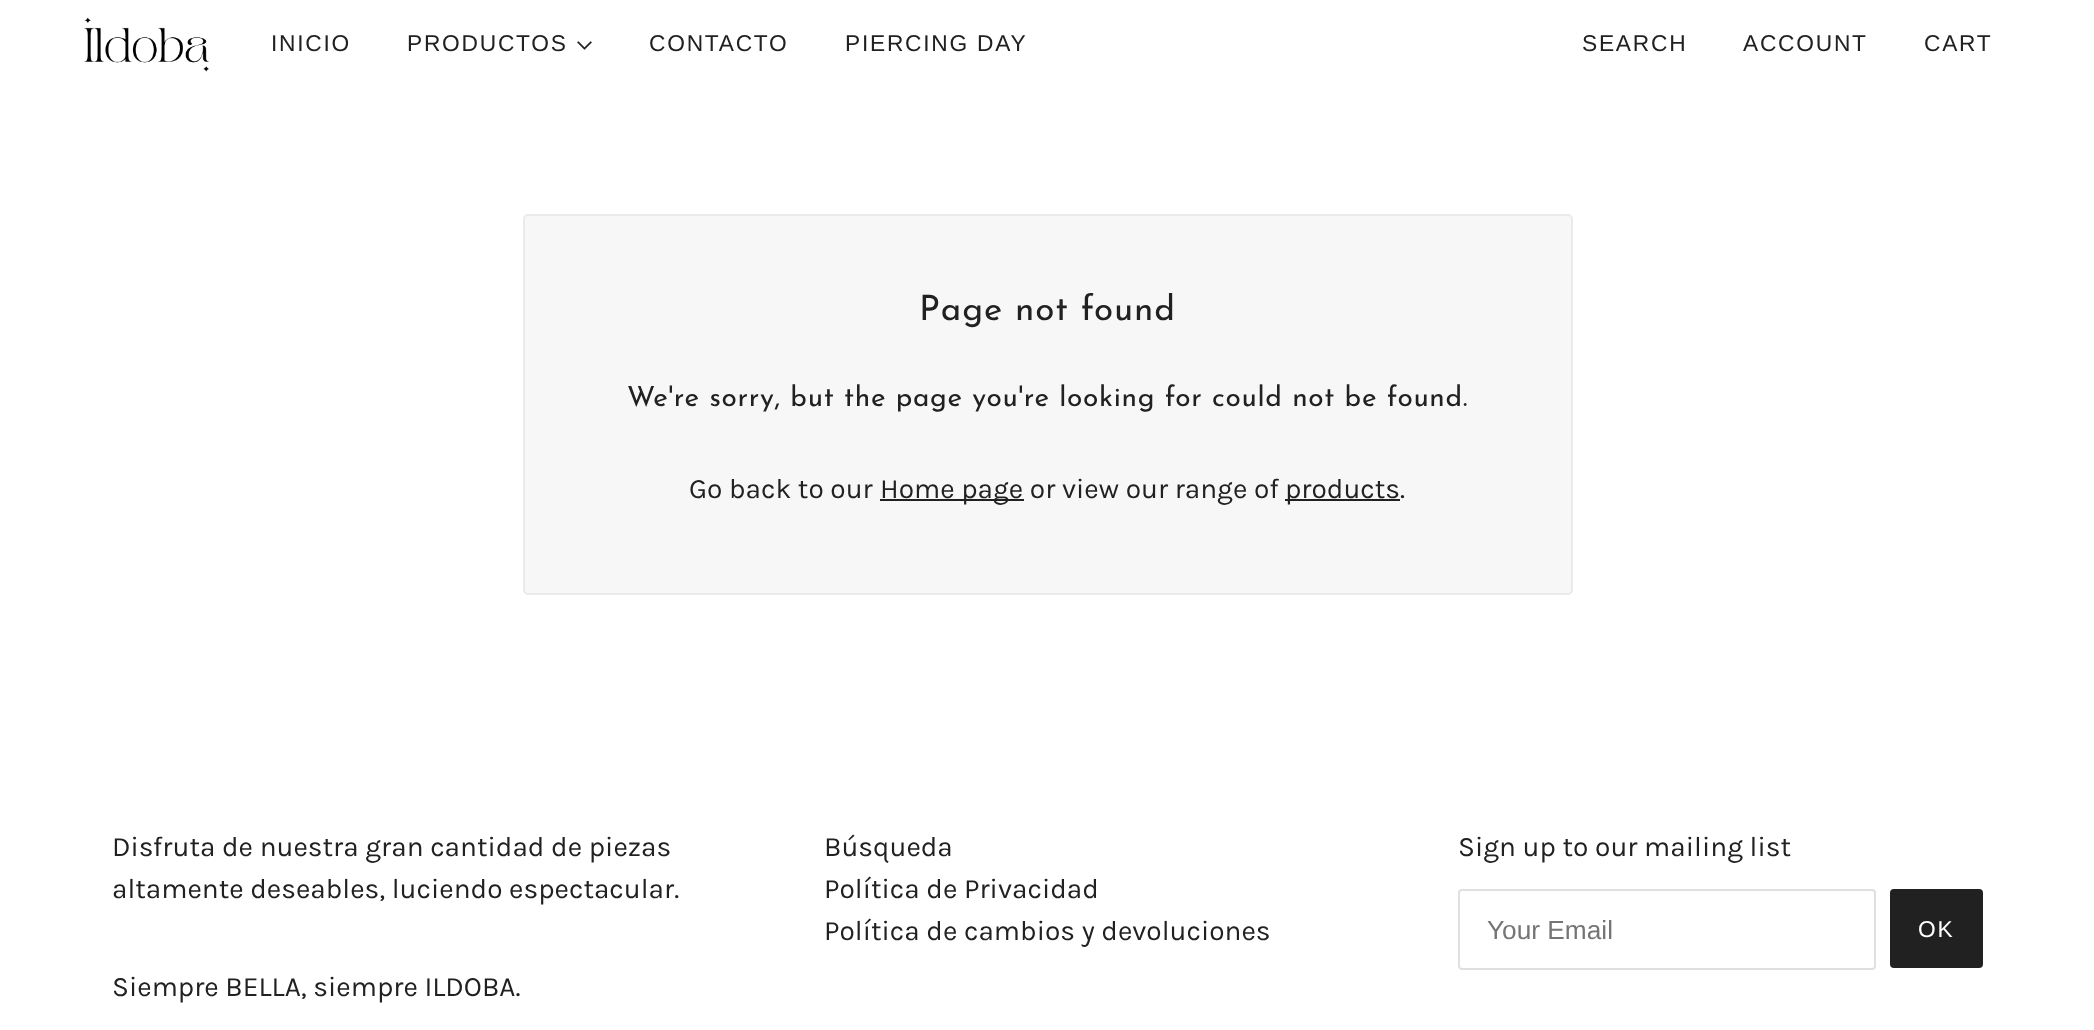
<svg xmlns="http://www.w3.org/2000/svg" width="2094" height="1030">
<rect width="100%" height="100%" fill="#fff"/>
<image x="84" y="17" width="126" height="55" href="media/1.png"/>
<text x="271" y="51" style="font-family:Liberation Sans;font-size:22.75px;letter-spacing:1.75px;fill:#212121">INICIO</text>
<text x="407" y="51" style="font-family:Liberation Sans;font-size:22.75px;letter-spacing:1.75px;fill:#212121">PRODUCTOS</text>
<image x="577" y="41" width="15" height="9" href="media/2.png"/>
<text x="649" y="51" style="font-family:Liberation Sans;font-size:22.75px;letter-spacing:1.75px;fill:#212121">CONTACTO</text>
<text x="845" y="51" style="font-family:Liberation Sans;font-size:22.75px;letter-spacing:1.75px;fill:#212121">PIERCING DAY</text>
<text x="1582" y="51" style="font-family:Liberation Sans;font-size:22.75px;letter-spacing:1.75px;fill:#212121">SEARCH</text>
<text x="1743" y="51" style="font-family:Liberation Sans;font-size:22.75px;letter-spacing:1.75px;fill:#212121">ACCOUNT</text>
<text x="1924" y="51" style="font-family:Liberation Sans;font-size:22.75px;letter-spacing:1.75px;fill:#212121">CART</text>
<rect x="524" y="215" width="1048" height="379" rx="4" fill="#f7f7f7" stroke="#eaeaea" stroke-width="2"/>
<text x="919" y="320" style="font-family:Josefin Sans;font-size:35px;letter-spacing:0.9px;fill:#212121">Page not found</text>
<text x="627" y="406" style="font-family:Josefin Sans;font-size:28px;letter-spacing:0.7px;fill:#212121">We're sorry, but the page you're looking for could not be found.</text>
<text x="689" y="498" style="font-family:Karla;font-size:28px;fill:#212121">Go back to our</text>
<rect x="880" y="499" width="144" height="2" fill="#212121"/>
<text x="880" y="498" style="font-family:Karla;font-size:28px;fill:#212121">Home page or view our range of</text>
<rect x="1285" y="499" width="115" height="2" fill="#212121"/>
<text x="1285" y="498" style="font-family:Karla;font-size:28px;fill:#212121">products.</text>
<text x="112" y="856" style="font-family:Karla;font-size:28px;fill:#212121">Disfruta de nuestra gran cantidad de piezas</text>
<text x="112" y="898" style="font-family:Karla;font-size:28px;fill:#212121">altamente deseables, luciendo espectacular.</text>
<text x="112" y="996" style="font-family:Karla;font-size:28px;fill:#212121">Siempre BELLA, siempre ILDOBA.</text>
<text x="824" y="856" style="font-family:Karla;font-size:28px;fill:#212121">Búsqueda</text>
<text x="824" y="898" style="font-family:Karla;font-size:28px;fill:#212121">Política de Privacidad</text>
<text x="824" y="940" style="font-family:Karla;font-size:28px;fill:#212121">Política de cambios y devoluciones</text>
<text x="1458" y="856" style="font-family:Karla;font-size:28px;fill:#212121">Sign up to our mailing list</text>
<rect x="1459" y="890" width="416" height="79" rx="3" fill="none" stroke="#e0e0e0" stroke-width="2"/>
<text x="1487" y="939" style="font-family:Liberation Sans;font-size:26.25px;fill:#757575">Your Email</text>
<rect x="1890" y="889" width="93" height="79" rx="4" fill="#212121"/>
<text x="1918" y="937" style="font-family:Liberation Sans;font-size:22.75px;letter-spacing:1.75px;fill:#fff">OK</text>
</svg>
